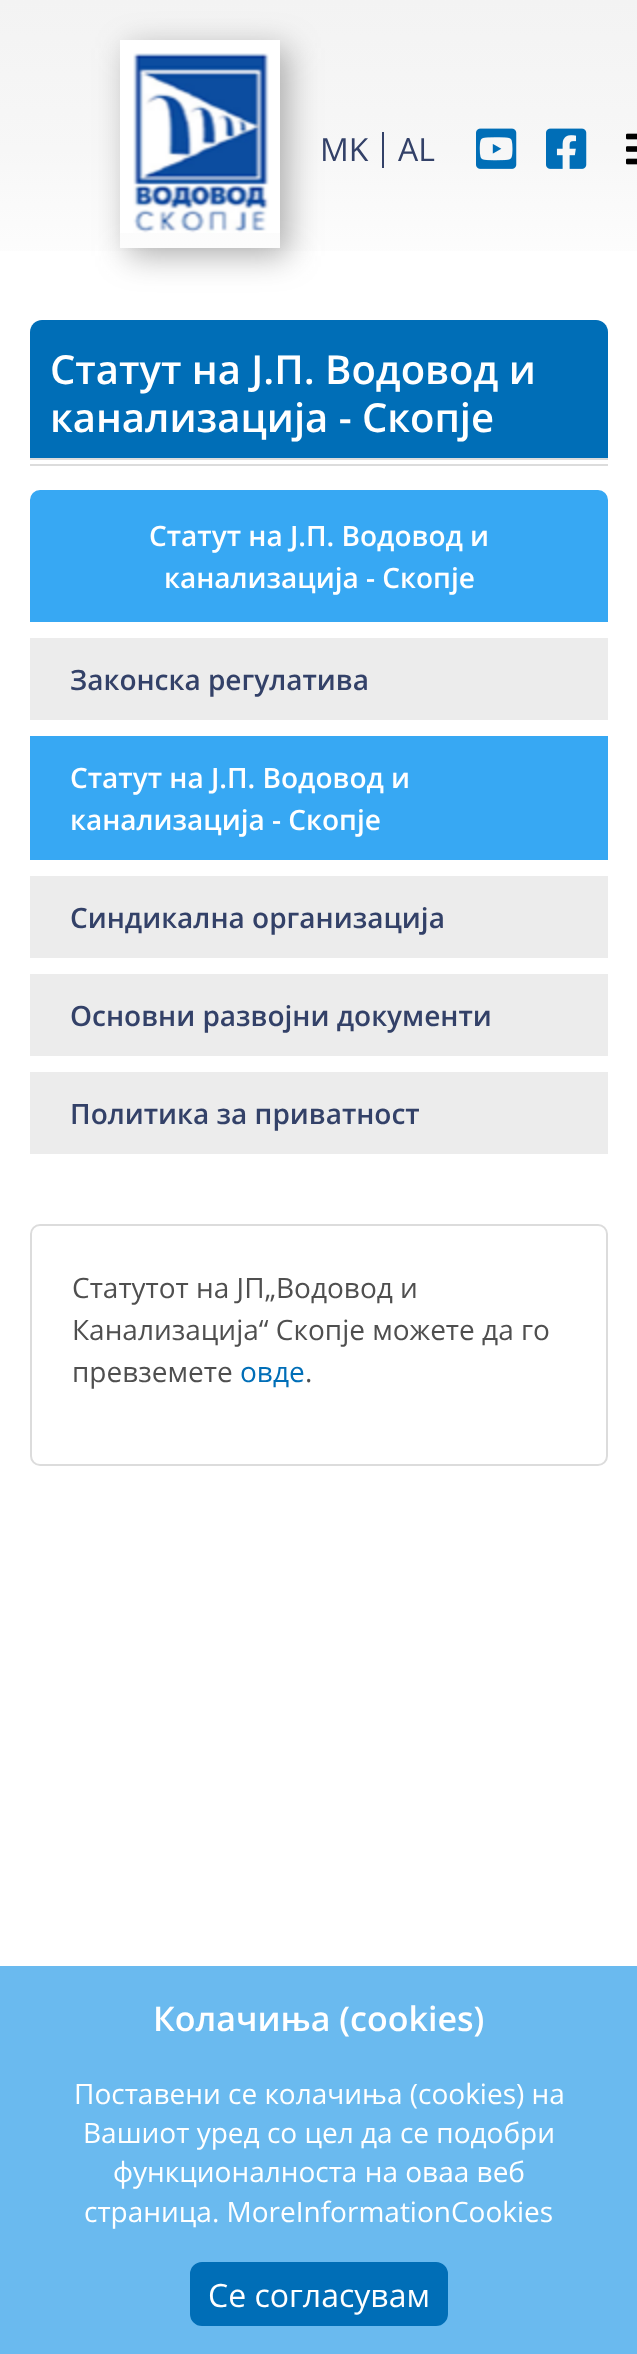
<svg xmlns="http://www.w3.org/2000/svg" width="637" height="2354">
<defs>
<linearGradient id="g1" gradientUnits="userSpaceOnUse" x1="319" y1="0" x2="319" y2="298"><stop offset="0" stop-color="#f3f3f3"/><stop offset="0.5" stop-color="#f7f7f7"/><stop offset="1" stop-color="#fff"/></linearGradient>
<clipPath id="clip1"><path d="M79 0h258v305h-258zm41 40h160v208h-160z" clip-rule="evenodd"/></clipPath>
</defs>
<rect width="100%" height="100%" fill="#fff"/>
<rect width="637" height="251" fill="url(#g1)"/>
<g clip-path="url(#clip1)">
<rect x="128" y="48" width="160" height="208" fill="#56565678" filter="blur(16px)"/>
</g>
<image x="120" y="40" width="160" height="193" href="media/1.png"/>
<text x="320" y="161" style="font-family:Open Sans;font-size:32px;fill:#334168">MK</text>
<rect x="382" y="132" width="2" height="36" fill="#334168"/>
<text x="398" y="161" style="font-family:Open Sans;font-size:32px;fill:#334168">AL</text>
<image x="476" y="128" width="41" height="41" href="media/2.png"/>
<image x="546" y="128" width="41" height="41" href="media/3.png"/>
<image x="626" y="133" width="11" height="32" href="media/4.png"/>
<path d="M42 320h554c6.5 0 12 5.5 12 12v128h-578v-128c0-6.5 5.5-12 12-12z" fill="#006eb7"/>
<rect x="30" y="458" width="578" height="2" fill="#dcdcdc"/>
<text x="50" y="384" style="font-family:Open Sans;font-size:40px;font-weight:600;fill:#fff">Статут на Ј.П. Водовод и</text>
<text x="50" y="432" style="font-family:Open Sans;font-size:40px;font-weight:600;fill:#fff">канализација - Скопје</text>
<rect x="30" y="464" width="578" height="2" fill="#dcdcdc"/>
<path d="M40 492h558c4.5 0 8 3.5 8 8v120h-574v-120c0-4.5 3.5-8 8-8z" fill="#37a8f3" stroke="#37a8f3" stroke-width="4"/>
<text x="149" y="546" style="font-family:Open Sans;font-size:28px;font-weight:600;fill:#fff">Статут на Ј.П. Водовод и</text>
<text x="164" y="588" style="font-family:Open Sans;font-size:28px;font-weight:600;fill:#fff">канализација - Скопје</text>
<rect x="30" y="638" width="578" height="82" fill="#ececec"/>
<text x="70" y="690" style="font-family:Open Sans;font-size:28px;font-weight:600;fill:#334168">Законска регулатива</text>
<rect x="30" y="736" width="578" height="124" fill="#37a8f3"/>
<text x="70" y="788" style="font-family:Open Sans;font-size:28px;font-weight:600;fill:#fff">Статут на Ј.П. Водовод и</text>
<text x="70" y="830" style="font-family:Open Sans;font-size:28px;font-weight:600;fill:#fff">канализација - Скопје</text>
<rect x="30" y="876" width="578" height="82" fill="#ececec"/>
<text x="70" y="928" style="font-family:Open Sans;font-size:28px;font-weight:600;fill:#334168">Синдикална организација</text>
<rect x="30" y="974" width="578" height="82" fill="#ececec"/>
<text x="70" y="1026" style="font-family:Open Sans;font-size:28px;font-weight:600;fill:#334168">Основни развојни документи</text>
<rect x="30" y="1072" width="578" height="82" fill="#ececec"/>
<text x="70" y="1124" style="font-family:Open Sans;font-size:28px;font-weight:600;fill:#334168">Политика за приватност</text>
<rect x="31" y="1225" width="576" height="240" rx="9" fill="none" stroke="#dcdcdc" stroke-width="2"/>
<text x="72" y="1298" style="font-family:Open Sans;font-size:28px;fill:#4f4f4f">Статутот на ЈП„Водовод и</text>
<text x="72" y="1340" style="font-family:Open Sans;font-size:28px;fill:#4f4f4f">Канализација“ Скопје можете да го</text>
<text x="72" y="1382" style="font-family:Open Sans;font-size:28px;fill:#4f4f4f">превземете</text>
<text x="240" y="1382" style="font-family:Open Sans;font-size:28px;fill:#006eb7">овде</text>
<text x="305" y="1382" style="font-family:Open Sans;font-size:28px;fill:#4f4f4f">.</text>
<rect y="1966" width="637" height="388" fill="#6abaef"/>
<text x="153" y="2031" style="font-family:Open Sans;font-size:34px;font-weight:600;fill:#fff">Колачиња (cookies)</text>
<text x="74" y="2104" style="font-family:Open Sans;font-size:28px;fill:#fff">Поставени се колачиња (cookies) на</text>
<text x="83" y="2143" style="font-family:Open Sans;font-size:28px;fill:#fff">Вашиот уред со цел да се подобри</text>
<text x="113" y="2182" style="font-family:Open Sans;font-size:28px;fill:#fff">функционалноста на оваа веб</text>
<text x="84" y="2222" style="font-family:Open Sans;font-size:28px;fill:#fff">страница. MoreInformationCookies</text>
<rect x="191" y="2263" width="256" height="62" rx="11" fill="#006eb7" stroke="#006eb7" stroke-width="2"/>
<text x="208" y="2307" style="font-family:Open Sans;font-size:32px;fill:#fff">Се согласувам</text>
</svg>
